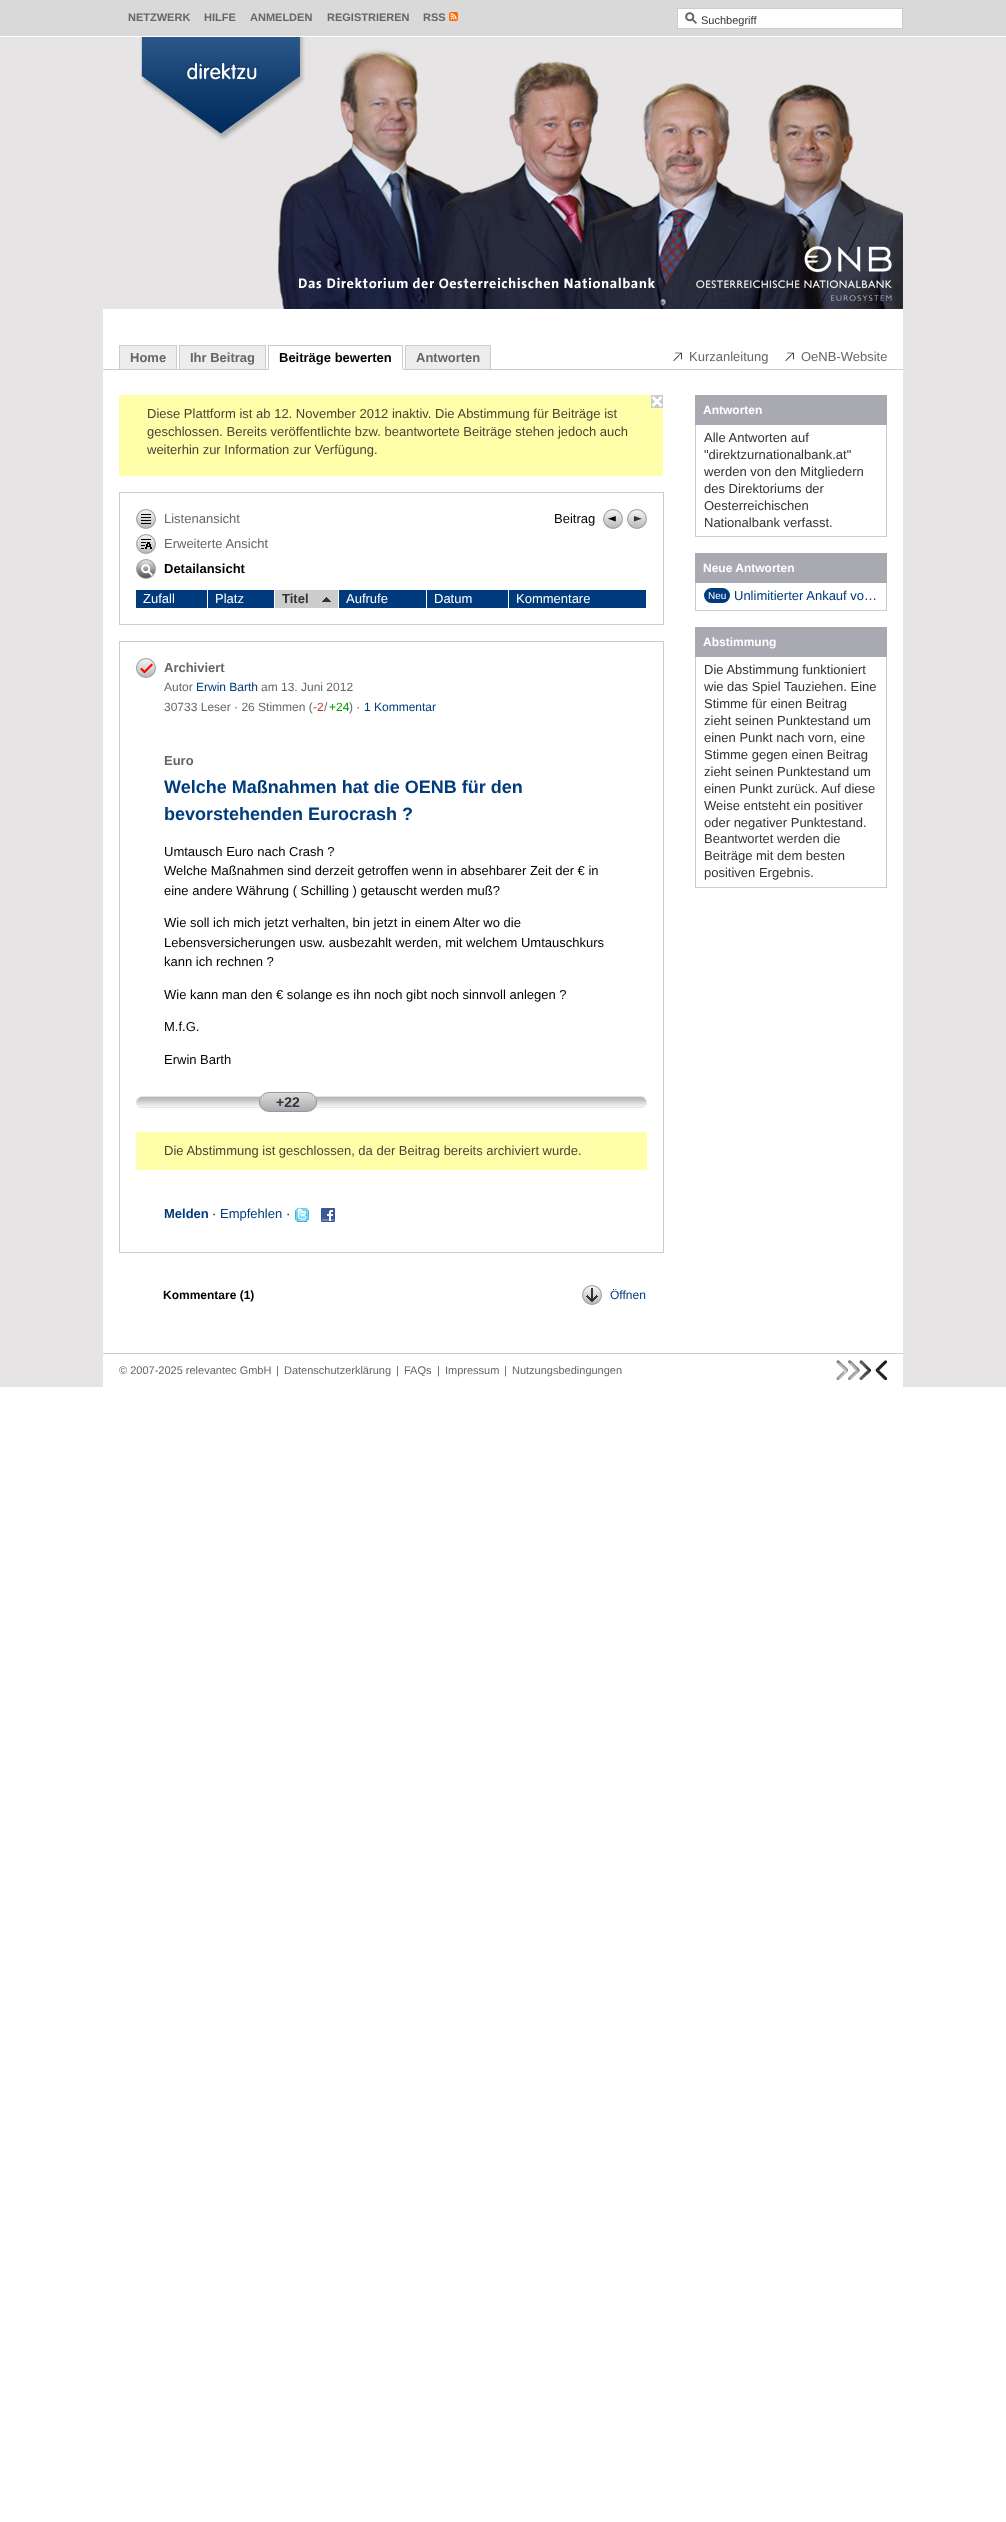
<svg xmlns="http://www.w3.org/2000/svg" width="1006" height="2522">
<defs>
<clipPath id="clip1"><rect x="259" y="1092" width="58" height="20" rx="10"/></clipPath>
<linearGradient id="g1" gradientUnits="userSpaceOnUse" x1="288" y1="1093" x2="288" y2="1111"><stop offset="0" stop-color="#ddd"/><stop offset="1" stop-color="#a9a9b2"/></linearGradient>
</defs>
<rect width="100%" height="100%" fill="#fff"/>
<rect y="37" width="1006" height="1350" fill="#e6e4e4"/>
<rect width="1006" height="36" fill="#d9d9d9"/>
<text x="128" y="21" style="font-family:Liberation Sans;font-size:11px;font-weight:bold;fill:#666">NETZWERK</text>
<text x="204" y="21" style="font-family:Liberation Sans;font-size:11px;font-weight:bold;fill:#666">HILFE</text>
<text x="250" y="21" style="font-family:Liberation Sans;font-size:11px;font-weight:bold;fill:#666">ANMELDEN</text>
<text x="327" y="21" style="font-family:Liberation Sans;font-size:11px;font-weight:bold;fill:#666">REGISTRIEREN</text>
<text x="423" y="21" style="font-family:Liberation Sans;font-size:11px;font-weight:bold;fill:#666">RSS</text>
<image x="449" y="12" width="9" height="9" href="media/1.png"/>
<rect x="677.5" y="8.5" width="225" height="20" fill="#fff" stroke="#ccc"/>
<image x="685" y="12" width="12" height="12" href="media/2.png"/>
<text x="701" y="24" style="font-family:Liberation Sans;font-size:11px;fill:#333">Suchbegriff</text>
<rect x="103" y="309" width="800" height="1078" fill="#fff"/>
<image x="103" y="37" width="800" height="272" href="media/3.png"/>
<rect x="103" y="369" width="800" height="1" fill="#ccc"/>
<rect x="119.5" y="345.5" width="57" height="24" fill="#ededed" stroke="#ccc"/>
<text x="130" y="362" style="font-family:Liberation Sans;font-size:13px;font-weight:bold;fill:#666">Home</text>
<rect x="179.5" y="345.5" width="86" height="24" fill="#ededed" stroke="#ccc"/>
<text x="190" y="362" style="font-family:Liberation Sans;font-size:13px;font-weight:bold;fill:#666">Ihr Beitrag</text>
<rect x="268" y="345" width="135" height="1" fill="#ccc"/>
<rect x="402" y="345" width="1" height="25" fill="#ccc"/>
<rect x="268" y="369" width="135" height="1" fill="#fff"/>
<rect x="268" y="345" width="1" height="25" fill="#ccc"/>
<text x="279" y="362" style="font-family:Liberation Sans;font-size:13px;font-weight:bold;fill:#000">Beiträge bewerten</text>
<rect x="405.5" y="345.5" width="85" height="24" fill="#ededed" stroke="#ccc"/>
<text x="416" y="362" style="font-family:Liberation Sans;font-size:13px;font-weight:bold;fill:#666">Antworten</text>
<image x="673" y="352" width="9" height="9" href="media/4.png"/>
<text x="689" y="361" style="font-family:Liberation Sans;font-size:13px;fill:#666">Kurzanleitung</text>
<image x="785" y="352" width="9" height="9" href="media/4.png"/>
<text x="801" y="361" style="font-family:Liberation Sans;font-size:13px;fill:#666">OeNB-Website</text>
<rect x="119" y="395" width="544" height="81" fill="#ffa"/>
<image x="651" y="395" width="12" height="13" href="media/5.png"/>
<text x="147" y="418" style="font-family:Liberation Sans;font-size:13px;fill:#513e38">Diese Plattform ist ab 12. November 2012 inaktiv. Die Abstimmung für Beiträge ist</text>
<text x="147" y="436" style="font-family:Liberation Sans;font-size:13px;fill:#513e38">geschlossen. Bereits veröffentlichte bzw. beantwortete Beiträge stehen jedoch auch</text>
<text x="147" y="454" style="font-family:Liberation Sans;font-size:13px;fill:#513e38">weiterhin zur Information zur Verfügung.</text>
<rect x="119.5" y="492.5" width="544" height="132" fill="none" stroke="#ccc"/>
<image x="136" y="509" width="20" height="20" href="media/6.png"/>
<text x="164" y="523" style="font-family:Liberation Sans;font-size:13px;fill:#666">Listenansicht</text>
<image x="136" y="534" width="20" height="20" href="media/7.png"/>
<text x="164" y="548" style="font-family:Liberation Sans;font-size:13px;fill:#666">Erweiterte Ansicht</text>
<image x="136" y="559" width="20" height="20" href="media/8.png"/>
<text x="164" y="573" style="font-family:Liberation Sans;font-size:13px;font-weight:bold;fill:#000">Detailansicht</text>
<text x="554" y="523" style="font-family:Liberation Sans;font-size:13px;fill:#000">Beitrag</text>
<image x="603" y="509" width="20" height="20" href="media/9.png"/>
<image x="627" y="509" width="20" height="20" href="media/10.png"/>
<rect x="136" y="590" width="71" height="18" fill="#003b7d"/>
<text x="143" y="603" style="font-family:Liberation Sans;font-size:13px;fill:#fff">Zufall</text>
<rect x="208" y="590" width="66" height="18" fill="#003b7d"/>
<text x="215" y="603" style="font-family:Liberation Sans;font-size:13px;fill:#fff">Platz</text>
<rect x="275" y="590" width="63" height="18" fill="#ccc"/>
<text x="282" y="603" style="font-family:Liberation Sans;font-size:13px;font-weight:bold;fill:#333">Titel</text>
<image x="322" y="597" width="9" height="5" href="media/11.png"/>
<rect x="339" y="590" width="87" height="18" fill="#003b7d"/>
<text x="346" y="603" style="font-family:Liberation Sans;font-size:13px;fill:#fff">Aufrufe</text>
<rect x="427" y="590" width="81" height="18" fill="#003b7d"/>
<text x="434" y="603" style="font-family:Liberation Sans;font-size:13px;fill:#fff">Datum</text>
<rect x="509" y="590" width="137" height="18" fill="#003b7d"/>
<text x="516" y="603" style="font-family:Liberation Sans;font-size:13px;fill:#fff">Kommentare</text>
<rect x="119.5" y="641.5" width="544" height="611" fill="none" stroke="#ccc"/>
<image x="136" y="658" width="20" height="20" href="media/12.png"/>
<text x="164" y="672" style="font-family:Liberation Sans;font-size:13px;font-weight:bold;fill:#666">Archiviert</text>
<text x="164" y="691" style="font-family:Liberation Sans;font-size:12px;fill:#666">Autor</text>
<text x="196" y="691" style="font-family:Liberation Sans;font-size:12px;fill:#003b7d">Erwin Barth</text>
<text x="261" y="691" style="font-family:Liberation Sans;font-size:12px;fill:#666">am 13. Juni 2012</text>
<text x="164" y="711" style="font-family:Liberation Sans;font-size:12px;fill:#666">30733 Leser · 26 Stimmen (</text>
<text x="313" y="711" style="font-family:Liberation Sans;font-size:12px;fill:#c33">-2</text>
<text x="324" y="711" style="font-family:Liberation Sans;font-size:12px;fill:#666">/</text>
<text x="329" y="711" style="font-family:Liberation Sans;font-size:12px;fill:#090">+24</text>
<text x="349" y="711" style="font-family:Liberation Sans;font-size:12px;fill:#666">) ·</text>
<text x="364" y="711" style="font-family:Liberation Sans;font-size:12px;fill:#003b7d">1 Kommentar</text>
<text x="164" y="765" style="font-family:Liberation Sans;font-size:13px;font-weight:bold;fill:#666">Euro</text>
<text x="164" y="793" style="font-family:Liberation Sans;font-size:18px;font-weight:bold;fill:#003b7d">Welche Maßnahmen hat die OENB für den</text>
<text x="164" y="820" style="font-family:Liberation Sans;font-size:18px;font-weight:bold;fill:#003b7d">bevorstehenden Eurocrash ?</text>
<text x="164" y="856" style="font-family:Liberation Sans;font-size:13px;fill:#000">Umtausch Euro nach Crash ?</text>
<text x="164" y="875" style="font-family:Liberation Sans;font-size:13px;fill:#000">Welche Maßnahmen sind derzeit getroffen wenn in absehbarer Zeit der € in</text>
<text x="164" y="895" style="font-family:Liberation Sans;font-size:13px;fill:#000">eine andere Währung ( Schilling ) getauscht werden muß?</text>
<text x="164" y="927" style="font-family:Liberation Sans;font-size:13px;fill:#000">Wie soll ich mich jetzt verhalten, bin jetzt in einem Alter wo die</text>
<text x="164" y="947" style="font-family:Liberation Sans;font-size:13px;fill:#000">Lebensversicherungen usw. ausbezahlt werden, mit welchem Umtauschkurs</text>
<text x="164" y="966" style="font-family:Liberation Sans;font-size:13px;fill:#000">kann ich rechnen ?</text>
<text x="164" y="999" style="font-family:Liberation Sans;font-size:13px;fill:#000">Wie kann man den € solange es ihn noch gibt noch sinnvoll anlegen ?</text>
<text x="164" y="1031" style="font-family:Liberation Sans;font-size:13px;fill:#000">M.f.G.</text>
<text x="164" y="1064" style="font-family:Liberation Sans;font-size:13px;fill:#000">Erwin Barth</text>
<image x="136" y="1096" width="511" height="12" href="media/13.png"/>
<g clip-path="url(#clip1)">
<rect x="259" y="1093" width="58" height="18" fill="url(#g1)"/>
</g>
<rect x="259.5" y="1092.5" width="57" height="19" rx="9.5" fill="none" stroke="#999"/>
<text x="276" y="1107" style="font-family:Liberation Sans;font-size:14px;font-weight:bold;fill:#333">+22</text>
<rect x="136" y="1132" width="511" height="38" fill="#ffa"/>
<text x="164" y="1155" style="font-family:Liberation Sans;font-size:13px;fill:#513e38">Die Abstimmung ist geschlossen, da der Beitrag bereits archiviert wurde.</text>
<text x="164" y="1218" style="font-family:Liberation Sans;font-size:13px;font-weight:bold;fill:#003b7d">Melden</text>
<text x="212" y="1218" style="font-family:Liberation Sans;font-size:13px;fill:#000">·</text>
<text x="220" y="1218" style="font-family:Liberation Sans;font-size:13px;fill:#003b7d">Empfehlen</text>
<text x="286" y="1218" style="font-family:Liberation Sans;font-size:13px;fill:#000">·</text>
<image x="295" y="1208" width="14" height="14" href="media/14.png"/>
<image x="321" y="1208" width="14" height="14" href="media/15.png"/>
<text x="163" y="1299" style="font-family:Liberation Sans;font-size:12px;font-weight:bold;fill:#000">Kommentare (1)</text>
<image x="582" y="1285" width="20" height="20" href="media/16.png"/>
<text x="610" y="1299" style="font-family:Liberation Sans;font-size:12px;fill:#003b7d">Öffnen</text>
<rect x="695" y="395" width="192" height="30" fill="#a9a9b2"/>
<text x="703" y="414" style="font-family:Liberation Sans;font-size:12px;font-weight:bold;fill:#fff">Antworten</text>
<rect x="886" y="425" width="1" height="112" fill="#ccc"/>
<rect x="695" y="536" width="192" height="1" fill="#ccc"/>
<rect x="695" y="425" width="1" height="112" fill="#ccc"/>
<text x="704" y="442" style="font-family:Liberation Sans;font-size:13px;fill:#333">Alle Antworten auf</text>
<text x="704" y="459" style="font-family:Liberation Sans;font-size:13px;fill:#333">"direktzurnationalbank.at"</text>
<text x="704" y="476" style="font-family:Liberation Sans;font-size:13px;fill:#333">werden von den Mitgliedern</text>
<text x="704" y="493" style="font-family:Liberation Sans;font-size:13px;fill:#333">des Direktoriums der</text>
<text x="704" y="510" style="font-family:Liberation Sans;font-size:13px;fill:#333">Oesterreichischen</text>
<text x="704" y="527" style="font-family:Liberation Sans;font-size:13px;fill:#333">Nationalbank verfasst.</text>
<rect x="695" y="553" width="192" height="30" fill="#a9a9b2"/>
<text x="703" y="572" style="font-family:Liberation Sans;font-size:12px;font-weight:bold;fill:#fff">Neue Antworten</text>
<rect x="886" y="583" width="1" height="28" fill="#ccc"/>
<rect x="695" y="610" width="192" height="1" fill="#ccc"/>
<rect x="695" y="583" width="1" height="28" fill="#ccc"/>
<rect x="704" y="588" width="26" height="15" rx="7.5" fill="#003b7d"/>
<text x="708" y="599" style="font-family:Liberation Sans;font-size:10px;fill:#fff">Neu</text>
<text x="734" y="600" style="font-family:Liberation Sans;font-size:13px;fill:#003b7d">Unlimitierter Ankauf vo…</text>
<rect x="695" y="627" width="192" height="30" fill="#a9a9b2"/>
<text x="703" y="646" style="font-family:Liberation Sans;font-size:12px;font-weight:bold;fill:#fff">Abstimmung</text>
<rect x="886" y="657" width="1" height="231" fill="#ccc"/>
<rect x="695" y="887" width="192" height="1" fill="#ccc"/>
<rect x="695" y="657" width="1" height="231" fill="#ccc"/>
<text x="704" y="674" style="font-family:Liberation Sans;font-size:13px;fill:#333">Die Abstimmung funktioniert</text>
<text x="704" y="691" style="font-family:Liberation Sans;font-size:13px;fill:#333">wie das Spiel Tauziehen. Eine</text>
<text x="704" y="708" style="font-family:Liberation Sans;font-size:13px;fill:#333">Stimme für einen Beitrag</text>
<text x="704" y="725" style="font-family:Liberation Sans;font-size:13px;fill:#333">zieht seinen Punktestand um</text>
<text x="704" y="742" style="font-family:Liberation Sans;font-size:13px;fill:#333">einen Punkt nach vorn, eine</text>
<text x="704" y="759" style="font-family:Liberation Sans;font-size:13px;fill:#333">Stimme gegen einen Beitrag</text>
<text x="704" y="776" style="font-family:Liberation Sans;font-size:13px;fill:#333">zieht seinen Punktestand um</text>
<text x="704" y="793" style="font-family:Liberation Sans;font-size:13px;fill:#333">einen Punkt zurück. Auf diese</text>
<text x="704" y="810" style="font-family:Liberation Sans;font-size:13px;fill:#333">Weise entsteht ein positiver</text>
<text x="704" y="827" style="font-family:Liberation Sans;font-size:13px;fill:#333">oder negativer Punktestand.</text>
<text x="704" y="843" style="font-family:Liberation Sans;font-size:13px;fill:#333">Beantwortet werden die</text>
<text x="704" y="860" style="font-family:Liberation Sans;font-size:13px;fill:#333">Beiträge mit dem besten</text>
<text x="704" y="877" style="font-family:Liberation Sans;font-size:13px;fill:#333">positiven Ergebnis.</text>
<rect x="103" y="1353" width="800" height="1" fill="#ccc"/>
<text x="119" y="1374" style="font-family:Liberation Sans;font-size:11px;fill:#666">© 2007-2025 relevantec GmbH</text>
<text x="276" y="1374" style="font-family:Liberation Sans;font-size:11px;fill:#666">|</text>
<text x="284" y="1374" style="font-family:Liberation Sans;font-size:11px;fill:#666">Datenschutzerklärung</text>
<text x="396" y="1374" style="font-family:Liberation Sans;font-size:11px;fill:#666">|</text>
<text x="404" y="1374" style="font-family:Liberation Sans;font-size:11px;fill:#666">FAQs</text>
<text x="437" y="1374" style="font-family:Liberation Sans;font-size:11px;fill:#666">|</text>
<text x="445" y="1374" style="font-family:Liberation Sans;font-size:11px;fill:#666">Impressum</text>
<text x="504" y="1374" style="font-family:Liberation Sans;font-size:11px;fill:#666">|</text>
<text x="512" y="1374" style="font-family:Liberation Sans;font-size:11px;fill:#666">Nutzungsbedingungen</text>
<image x="836" y="1360" width="51" height="20" href="media/17.png"/>
</svg>
